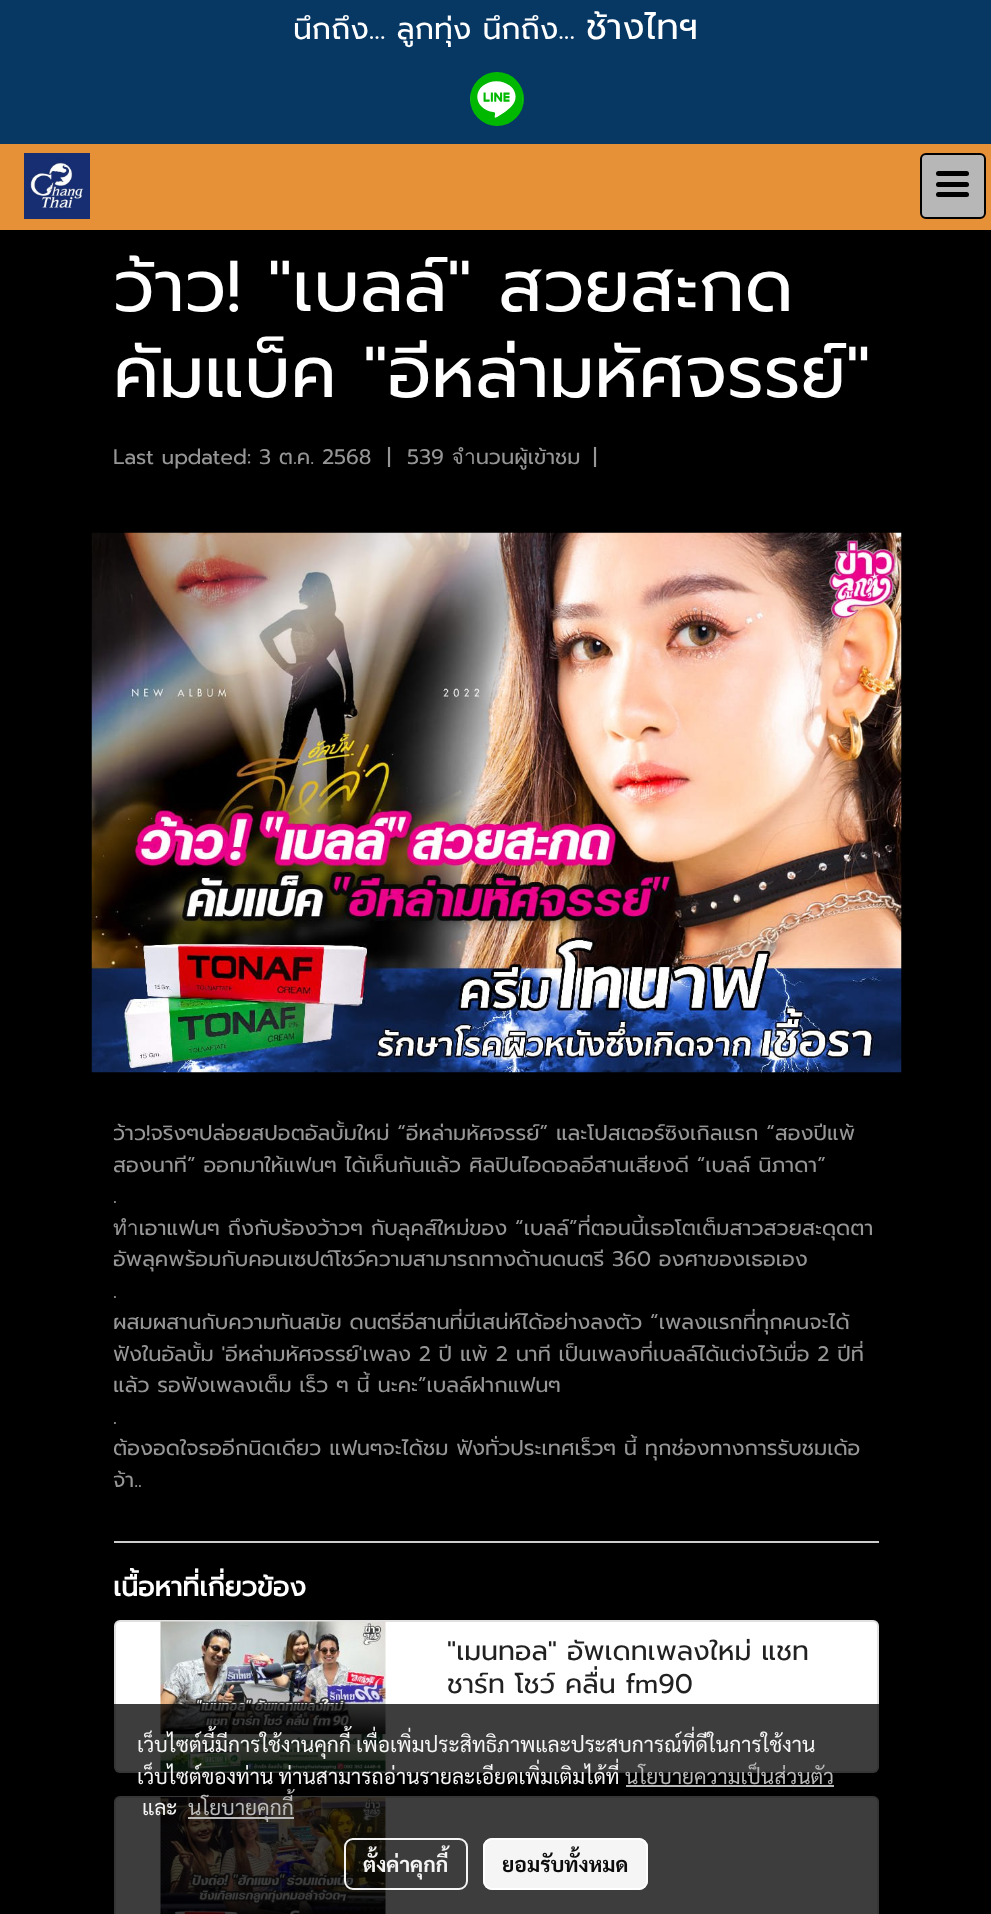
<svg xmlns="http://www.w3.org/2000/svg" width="991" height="1914">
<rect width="100%" height="100%" fill="#000"/>
<rect y="144" width="991" height="86" fill="#e69138"/>
<rect width="991" height="144" fill="#073763"/>
<text x="293" y="39" style="font-family:Prompt;font-size:30px;fill:#fff">นึกถึง... ลูกทุ่ง นึกถึง...</text>
<text x="586" y="39" style="font-family:Prompt;font-size:36px;fill:#fff">ช้างไทฯ</text>
<circle cx="497" cy="99" r="27" fill="#00b800"/>
<image x="470" y="72" width="53" height="54" href="media/1.png"/>
<image x="24" y="153" width="66" height="66" href="media/2.png"/>
<rect x="921" y="154" width="64" height="64" rx="5" fill="#b7b7b7" stroke="#000" stroke-width="2"/>
<rect x="936" y="182" width="33" height="5" rx="2.5" fill="#000"/>
<rect x="936" y="171" width="33" height="5" rx="2.5" fill="#000"/>
<rect x="936" y="192" width="33" height="5" rx="2.5" fill="#000"/>
<text x="113" y="311" style="font-family:Prompt;font-size:72px;fill:#fff">ว้าว! "เบลล์" สวยสะกด</text>
<text x="113" y="397" style="font-family:Prompt;font-size:72px;fill:#fff">คัมแบ็ค "อีหล่ามหัศจรรย์"</text>
<text x="113" y="464" style="font-family:Prompt;font-size:21px;fill:#969696">Last updated: 3 ต.ค. 2568</text>
<text x="387" y="464" style="font-family:Prompt;font-size:21px;fill:#969696">|</text>
<text x="407" y="464" style="font-family:Prompt;font-size:21px;fill:#969696">539 จำนวนผู้เข้าชม</text>
<text x="593" y="464" style="font-family:Prompt;font-size:21px;fill:#969696">|</text>
<image x="91" y="532" width="811" height="541" href="media/3.png"/>
<text x="113" y="1140" style="font-family:Prompt;font-size:21px;fill:#969696">ว้าว!จริงๆปล่อยสปอตอัลบั้มใหม่ “อีหล่ามหัศจรรย์” และโปสเตอร์ซิงเกิลแรก “สองปีแพ้</text>
<text x="113" y="1172" style="font-family:Prompt;font-size:21px;fill:#969696">สองนาที” ออกมาให้แฟนๆ ได้เห็นกันแล้ว ศิลปินไอดอลอีสานเสียงดี “เบลล์ นิภาดา”</text>
<text x="113" y="1203" style="font-family:Prompt;font-size:21px;fill:#969696">.</text>
<text x="113" y="1235" style="font-family:Prompt;font-size:21px;fill:#969696">ทำเอาแฟนๆ ถึงกับร้องว้าวๆ กับลุคส์ใหม่ของ “เบลล์”ที่ตอนนี้เธอโตเต็มสาวสวยสะดุดตา</text>
<text x="113" y="1266" style="font-family:Prompt;font-size:21px;fill:#969696">อัพลุคพร้อมกับคอนเซปต์โชว์ความสามารถทางด้านดนตรี 360 องศาของเธอเอง</text>
<text x="113" y="1298" style="font-family:Prompt;font-size:21px;fill:#969696">.</text>
<text x="113" y="1329" style="font-family:Prompt;font-size:21px;fill:#969696">ผสมผสานกับความทันสมัย ดนตรีอีสานที่มีเสน่ห์ได้อย่างลงตัว “เพลงแรกที่ทุกคนจะได้</text>
<text x="113" y="1361" style="font-family:Prompt;font-size:21px;fill:#969696">ฟังในอัลบั้ม 'อีหล่ามหัศจรรย์'เพลง 2 ปี แพ้ 2 นาที เป็นเพลงที่เบลล์ได้แต่งไว้เมื่อ 2 ปีที่</text>
<text x="113" y="1392" style="font-family:Prompt;font-size:21px;fill:#969696">แล้ว รอฟังเพลงเต็ม เร็ว ๆ นี้ นะคะ”เบลล์ฝากแฟนๆ</text>
<text x="113" y="1424" style="font-family:Prompt;font-size:21px;fill:#969696">.</text>
<text x="113" y="1455" style="font-family:Prompt;font-size:21px;fill:#969696">ต้องอดใจรออีกนิดเดียว แฟนๆจะได้ชม ฟังทั่วประเทศเร็วๆ นี้ ทุกช่องทางการรับชมเด้อ</text>
<text x="113" y="1487" style="font-family:Prompt;font-size:21px;fill:#969696">จ้า..</text>
<rect x="114" y="1541" width="765" height="2" fill="#ccc"/>
<text x="113" y="1596" style="font-family:Prompt;font-size:27px;font-weight:bold;fill:#fff">เนื้อหาที่เกี่ยวข้อง</text>
<rect x="114" y="1620" width="765" height="153" rx="6" fill="#fff"/>
<rect x="115" y="1621" width="763" height="151" rx="5" fill="none" stroke="#0000001f" stroke-width="2"/>
<image x="160" y="1621" width="226" height="151" href="media/4.png"/>
<text x="447" y="1660" style="font-family:Prompt;font-size:27px;fill:#212121">"เมนทอล" อัพเดทเพลงใหม่ แชท</text>
<text x="447" y="1693" style="font-family:Prompt;font-size:27px;fill:#212121">ชาร์ท โชว์ คลื่น fm90</text>
<rect x="114" y="1796" width="765" height="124" rx="6" fill="#fff"/>
<rect x="115" y="1797" width="763" height="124" rx="5" fill="none" stroke="#0000001f" stroke-width="2"/>
<image x="160" y="1797" width="226" height="117" href="media/5.png"/>
<rect x="114" y="1704" width="765" height="210" fill="#000000c2"/>
<text x="137" y="1752" style="font-family:Sarabun;font-size:21px;fill:#f5f5f5">เว็บไซต์นี้มีการใช้งานคุกกี้ เพื่อเพิ่มประสิทธิภาพและประสบการณ์ที่ดีในการใช้งาน</text>
<text x="137" y="1784" style="font-family:Sarabun;font-size:21px;fill:#f5f5f5">เว็บไซต์ของท่าน ท่านสามารถอ่านรายละเอียดเพิ่มเติมได้ที่</text>
<text x="625" y="1784" style="font-family:Sarabun;font-size:21px;fill:#b9b9b9">นโยบายความเป็นส่วนตัว</text>
<rect x="626" y="1785" width="208" height="2" fill="#b8b8b8"/>
<text x="142" y="1815" style="font-family:Sarabun;font-size:21px;fill:#f5f5f5">และ</text>
<rect x="188" y="1817" width="106" height="2" fill="#c2c2c2f2"/>
<text x="188" y="1815" style="font-family:Sarabun;font-size:21px;fill:#b9b9b9">นโยบายคุกกี้</text>
<rect x="345" y="1839" width="122" height="50" rx="8" fill="none" stroke="#fffffff2" stroke-width="2"/>
<text x="363" y="1872" style="font-family:Sarabun;font-size:21px;font-weight:bold;fill:#f5f5f5">ตั้งค่าคุกกี้</text>
<rect x="483" y="1838" width="165" height="52" rx="9" fill="#fffffff2"/>
<rect x="484" y="1839" width="163" height="50" rx="8" fill="none" stroke="#fffffff2" stroke-width="2"/>
<text x="502" y="1872" style="font-family:Sarabun;font-size:21px;font-weight:bold;fill:#0c0c0c">ยอมรับทั้งหมด</text>
</svg>
